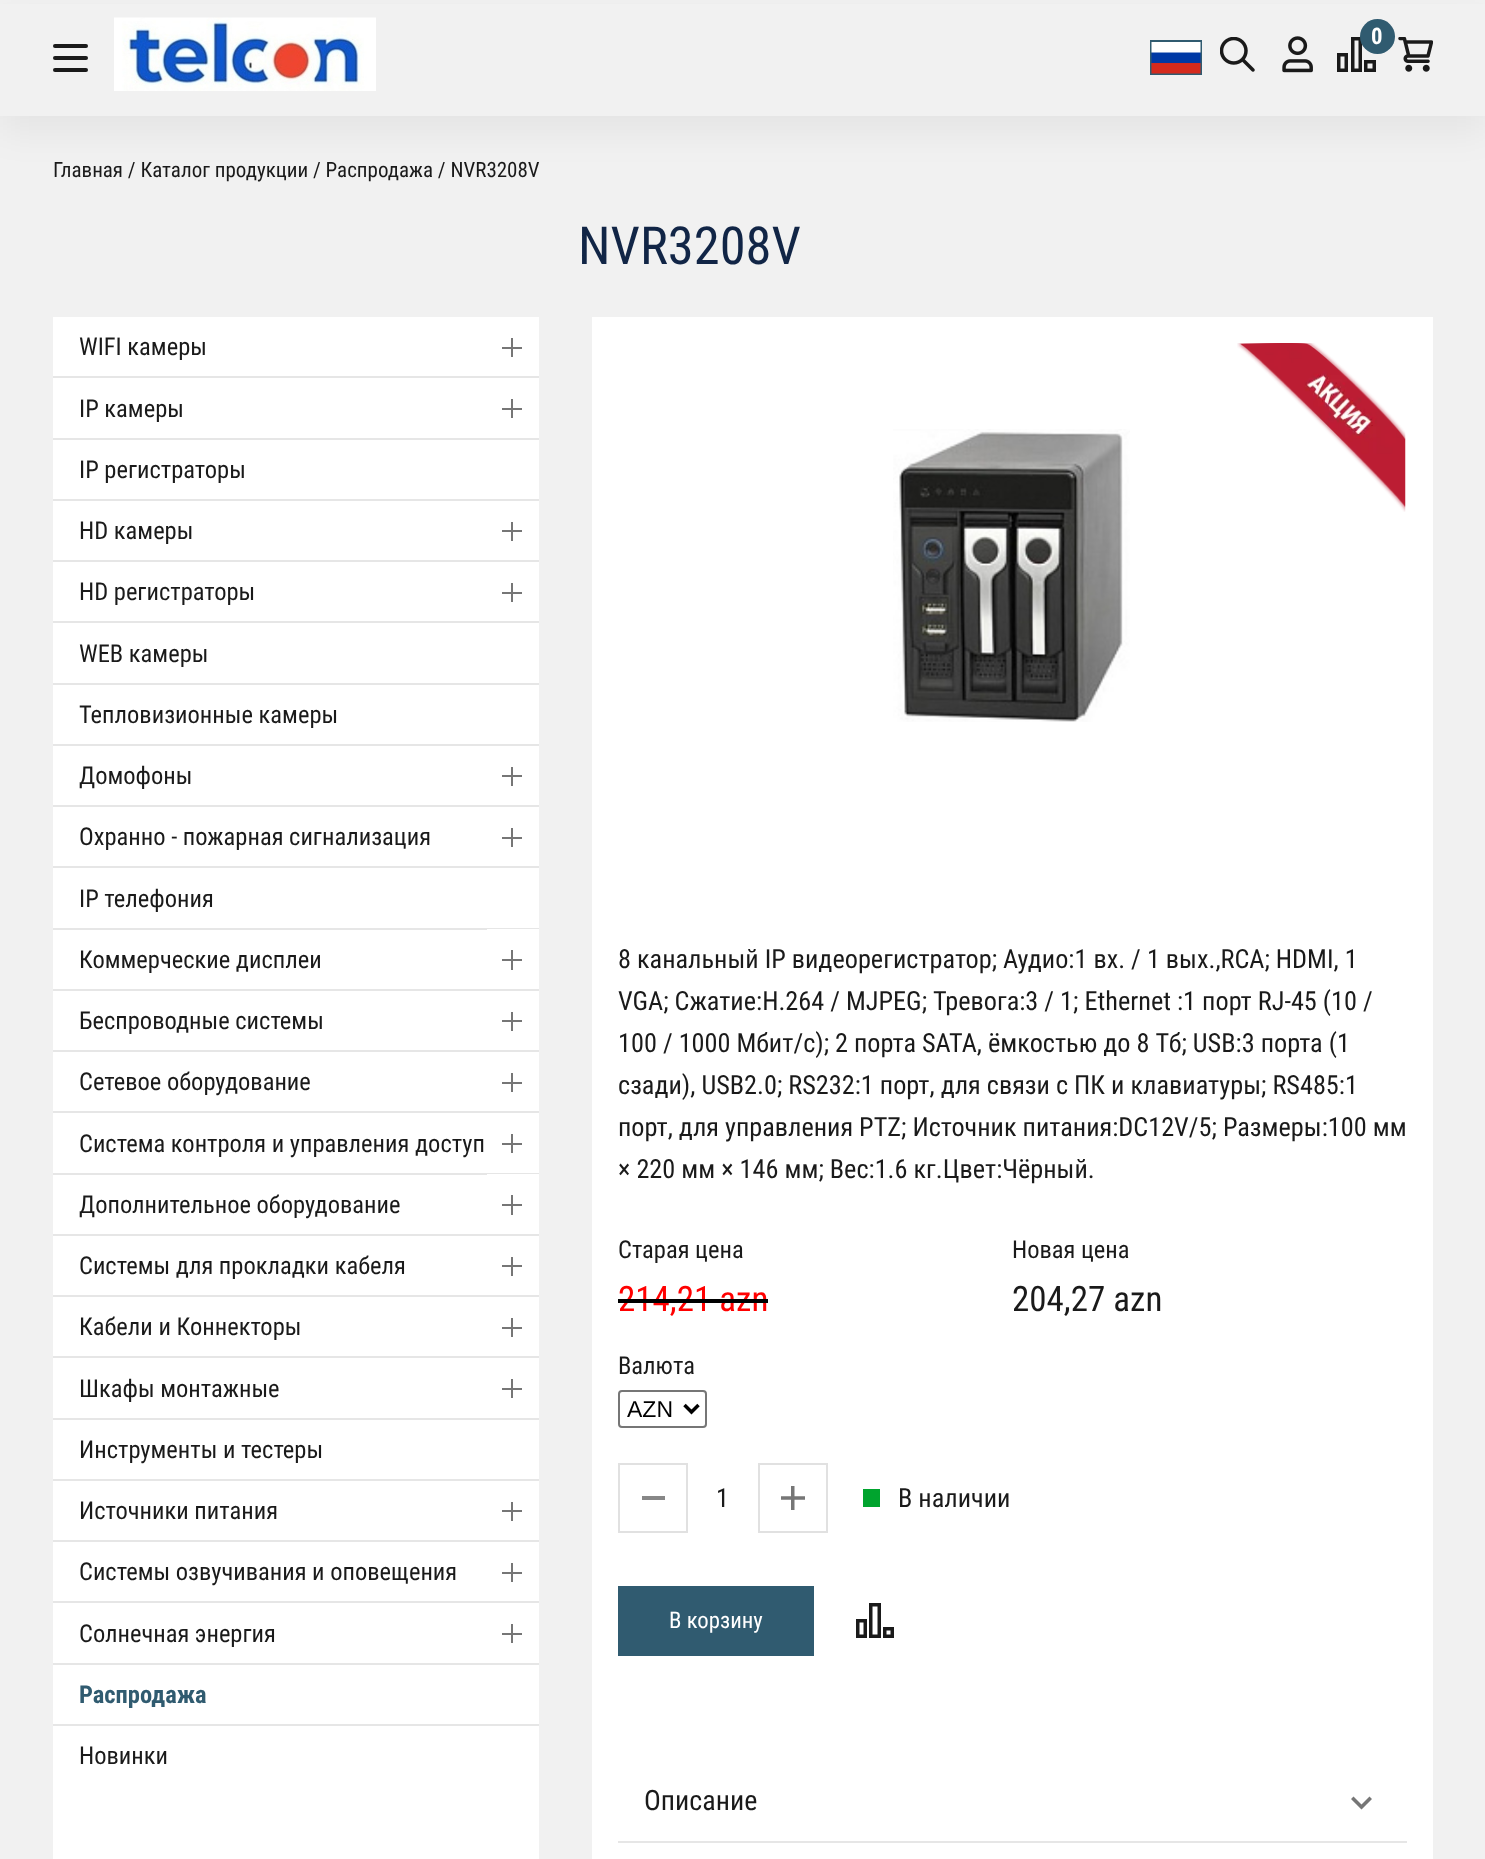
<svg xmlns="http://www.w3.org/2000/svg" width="1485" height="1859">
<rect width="100%" height="100%" fill="#f1f1f1"/>
<rect y="18" width="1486" height="115" fill="#0000000d" filter="blur(17.5px)"/>
<rect y="4" width="1485" height="112" fill="#f1f1f1"/>
<rect x="53" y="44" width="35" height="4" rx="2" fill="#1a1a1a"/>
<rect x="53" y="56" width="35" height="4" rx="2" fill="#1a1a1a"/>
<rect x="53" y="68" width="35" height="4" rx="2" fill="#1a1a1a"/>
<image x="114" y="17" width="262" height="74" href="media/1.png"/>
<rect x="1151" y="41" width="50" height="33" fill="none" stroke="#305b70" stroke-width="2"/>
<image x="1151" y="42" width="50" height="32" href="media/2.png"/>
<image x="1220" y="37" width="35" height="35" href="media/3.png"/>
<image x="1282" y="36" width="31" height="37" href="media/4.png"/>
<rect x="1338.75" y="54.75" width="7.5" height="15.5" fill="none" stroke="#1a1a1a" stroke-width="3.5"/>
<rect x="1352.75" y="38.75" width="7.5" height="31.5" fill="none" stroke="#1a1a1a" stroke-width="3.5"/>
<rect x="1365.75" y="61.75" width="8.5" height="8.5" fill="none" stroke="#1a1a1a" stroke-width="3.5"/>
<circle cx="1377.5" cy="36.5" r="17.5" fill="#305b70"/>
<text x="1371" y="44" style="font-family:Roboto Condensed;font-size:22.75px;font-weight:bold;fill:#fff">0</text>
<image x="1398" y="37" width="35" height="35" href="media/5.png"/>
<text x="53" y="177" style="font-family:Roboto Condensed;font-size:21px;fill:#1a1a1a">Главная / Каталог продукции / Распродажа / NVR3208V</text>
<text x="578" y="264" style="font-family:Roboto Condensed;font-size:52.5px;fill:#112546">NVR3208V</text>
<rect x="53" y="317" width="486" height="1542" fill="#fff"/>
<rect x="53" y="376" width="486" height="2" fill="#e6e6e6"/>
<text x="79" y="355" style="font-family:Roboto Condensed;font-size:24.5px;fill:#1a1a1a">WIFI камеры</text>
<rect x="511" y="338" width="2" height="19" fill="#767676"/>
<rect x="502" y="347" width="20" height="2" fill="#767676"/>
<rect x="53" y="438" width="486" height="2" fill="#e6e6e6"/>
<text x="79" y="417" style="font-family:Roboto Condensed;font-size:24.5px;fill:#1a1a1a">IP камеры</text>
<rect x="511" y="399" width="2" height="19" fill="#767676"/>
<rect x="502" y="408" width="20" height="2" fill="#767676"/>
<rect x="53" y="499" width="486" height="2" fill="#e6e6e6"/>
<text x="79" y="478" style="font-family:Roboto Condensed;font-size:24.5px;fill:#1a1a1a">IP регистраторы</text>
<rect x="53" y="560" width="486" height="2" fill="#e6e6e6"/>
<text x="79" y="539" style="font-family:Roboto Condensed;font-size:24.5px;fill:#1a1a1a">HD камеры</text>
<rect x="511" y="522" width="2" height="19" fill="#767676"/>
<rect x="502" y="530" width="20" height="2" fill="#767676"/>
<rect x="53" y="621" width="486" height="2" fill="#e6e6e6"/>
<text x="79" y="600" style="font-family:Roboto Condensed;font-size:24.5px;fill:#1a1a1a">HD регистраторы</text>
<rect x="511" y="583" width="2" height="19" fill="#767676"/>
<rect x="502" y="592" width="20" height="2" fill="#767676"/>
<rect x="53" y="683" width="486" height="2" fill="#e6e6e6"/>
<text x="79" y="662" style="font-family:Roboto Condensed;font-size:24.5px;fill:#1a1a1a">WEB камеры</text>
<rect x="53" y="744" width="486" height="2" fill="#e6e6e6"/>
<text x="79" y="723" style="font-family:Roboto Condensed;font-size:24.5px;fill:#1a1a1a">Тепловизионные камеры</text>
<rect x="53" y="805" width="486" height="2" fill="#e6e6e6"/>
<text x="79" y="784" style="font-family:Roboto Condensed;font-size:24.5px;fill:#1a1a1a">Домофоны</text>
<rect x="511" y="767" width="2" height="19" fill="#767676"/>
<rect x="502" y="775" width="20" height="2" fill="#767676"/>
<rect x="53" y="866" width="486" height="2" fill="#e6e6e6"/>
<text x="79" y="845" style="font-family:Roboto Condensed;font-size:24.5px;fill:#1a1a1a">Охранно - пожарная сигнализация</text>
<rect x="511" y="828" width="2" height="19" fill="#767676"/>
<rect x="502" y="837" width="20" height="2" fill="#767676"/>
<rect x="53" y="928" width="486" height="2" fill="#e6e6e6"/>
<text x="79" y="907" style="font-family:Roboto Condensed;font-size:24.5px;fill:#1a1a1a">IP телефония</text>
<rect x="53" y="989" width="486" height="2" fill="#e6e6e6"/>
<text x="79" y="968" style="font-family:Roboto Condensed;font-size:24.5px;fill:#1a1a1a">Коммерческие дисплеи</text>
<rect x="487" y="929" width="52" height="1" fill="#fff"/>
<rect x="511" y="950" width="2" height="20" fill="#767676"/>
<rect x="502" y="959" width="20" height="2" fill="#767676"/>
<rect x="53" y="1050" width="486" height="2" fill="#e6e6e6"/>
<text x="79" y="1029" style="font-family:Roboto Condensed;font-size:24.5px;fill:#1a1a1a">Беспроводные системы</text>
<rect x="511" y="1012" width="2" height="19" fill="#767676"/>
<rect x="502" y="1020" width="20" height="2" fill="#767676"/>
<rect x="53" y="1111" width="486" height="2" fill="#e6e6e6"/>
<text x="79" y="1090" style="font-family:Roboto Condensed;font-size:24.5px;fill:#1a1a1a">Cетевое оборудование</text>
<rect x="511" y="1073" width="2" height="19" fill="#767676"/>
<rect x="502" y="1082" width="20" height="2" fill="#767676"/>
<rect x="53" y="1173" width="486" height="2" fill="#e6e6e6"/>
<text x="79" y="1152" style="font-family:Roboto Condensed;font-size:24.5px;fill:#1a1a1a">Система контроля и управления доступ</text>
<rect x="511" y="1134" width="2" height="19" fill="#767676"/>
<rect x="502" y="1143" width="20" height="2" fill="#767676"/>
<rect x="53" y="1234" width="486" height="2" fill="#e6e6e6"/>
<text x="79" y="1213" style="font-family:Roboto Condensed;font-size:24.5px;fill:#1a1a1a">Дополнительное оборудование</text>
<rect x="487" y="1174" width="52" height="1" fill="#fff"/>
<rect x="511" y="1195" width="2" height="20" fill="#767676"/>
<rect x="502" y="1204" width="20" height="2" fill="#767676"/>
<rect x="53" y="1295" width="486" height="2" fill="#e6e6e6"/>
<text x="79" y="1274" style="font-family:Roboto Condensed;font-size:24.5px;fill:#1a1a1a">Системы для прокладки кабеля</text>
<rect x="511" y="1257" width="2" height="19" fill="#767676"/>
<rect x="502" y="1265" width="20" height="2" fill="#767676"/>
<rect x="53" y="1356" width="486" height="2" fill="#e6e6e6"/>
<text x="79" y="1335" style="font-family:Roboto Condensed;font-size:24.5px;fill:#1a1a1a">Кабели и Коннекторы</text>
<rect x="511" y="1318" width="2" height="19" fill="#767676"/>
<rect x="502" y="1327" width="20" height="2" fill="#767676"/>
<rect x="53" y="1418" width="486" height="2" fill="#e6e6e6"/>
<text x="79" y="1397" style="font-family:Roboto Condensed;font-size:24.5px;fill:#1a1a1a">Шкафы монтажные</text>
<rect x="511" y="1379" width="2" height="19" fill="#767676"/>
<rect x="502" y="1388" width="20" height="2" fill="#767676"/>
<rect x="53" y="1479" width="486" height="2" fill="#e6e6e6"/>
<text x="79" y="1458" style="font-family:Roboto Condensed;font-size:24.5px;fill:#1a1a1a">Инструменты и тестеры</text>
<rect x="53" y="1540" width="486" height="2" fill="#e6e6e6"/>
<text x="79" y="1519" style="font-family:Roboto Condensed;font-size:24.5px;fill:#1a1a1a">Источники питания</text>
<rect x="511" y="1502" width="2" height="19" fill="#767676"/>
<rect x="502" y="1510" width="20" height="2" fill="#767676"/>
<rect x="53" y="1601" width="486" height="2" fill="#e6e6e6"/>
<text x="79" y="1580" style="font-family:Roboto Condensed;font-size:24.5px;fill:#1a1a1a">Системы озвучивания и оповещения</text>
<rect x="511" y="1563" width="2" height="19" fill="#767676"/>
<rect x="502" y="1572" width="20" height="2" fill="#767676"/>
<rect x="53" y="1663" width="486" height="2" fill="#e6e6e6"/>
<text x="79" y="1642" style="font-family:Roboto Condensed;font-size:24.5px;fill:#1a1a1a">Солнечная энергия</text>
<rect x="511" y="1624" width="2" height="19" fill="#767676"/>
<rect x="502" y="1633" width="20" height="2" fill="#767676"/>
<rect x="53" y="1724" width="486" height="2" fill="#e6e6e6"/>
<text x="79" y="1703" style="font-family:Roboto Condensed;font-size:24.5px;font-weight:bold;fill:#305b70">Распродажа</text>
<text x="79" y="1764" style="font-family:Roboto Condensed;font-size:24.5px;fill:#1a1a1a">Новинки</text>
<rect x="592" y="317" width="841" height="1542" fill="#fff"/>
<image x="893" y="429" width="237" height="293" href="media/6.png"/>
<image x="1237" y="343" width="169" height="169" href="media/7.png"/>
<text x="618" y="968" style="font-family:Roboto Condensed;font-size:26.25px;fill:#1a1a1a">8 канальный IP видеорегистратор; Аудио:1 вх. / 1 вых.,RCA; HDMI, 1</text>
<text x="618" y="1010" style="font-family:Roboto Condensed;font-size:26.25px;fill:#1a1a1a">VGA; Сжатие:H.264 / MJPEG; Тревога:3 / 1; Ethernet :1 порт RJ-45 (10 /</text>
<text x="618" y="1052" style="font-family:Roboto Condensed;font-size:26.25px;fill:#1a1a1a">100 / 1000 Мбит/с); 2 порта SATA, ёмкостью до 8 Тб; USB:3 порта (1</text>
<text x="618" y="1094" style="font-family:Roboto Condensed;font-size:26.25px;fill:#1a1a1a">сзади), USB2.0; RS232:1 порт, для связи с ПК и клавиатуры; RS485:1</text>
<text x="618" y="1136" style="font-family:Roboto Condensed;font-size:26.25px;fill:#1a1a1a">порт, для управления PTZ; Источник питания:DC12V/5; Размеры:100 мм</text>
<text x="618" y="1178" style="font-family:Roboto Condensed;font-size:26.25px;fill:#1a1a1a">× 220 мм × 146 мм; Вес:1.6 кг.Цвет:Чёрный.</text>
<text x="618" y="1258" style="font-family:Roboto Condensed;font-size:24.5px;fill:#1a1a1a">Старая цена</text>
<text x="618" y="1311" style="font-family:Roboto Condensed;font-size:35px;fill:#f00">214,21 azn</text>
<rect x="618" y="1299" width="150" height="4" fill="#000"/>
<text x="1012" y="1258" style="font-family:Roboto Condensed;font-size:24.5px;fill:#1a1a1a">Новая цена</text>
<text x="1012" y="1311" style="font-family:Roboto Condensed;font-size:35px;fill:#1a1a1a">204,27 azn</text>
<text x="618" y="1374" style="font-family:Roboto Condensed;font-size:24.5px;fill:#1a1a1a">Валюта</text>
<rect x="619" y="1391" width="87" height="36" rx="3" fill="none" stroke="#767676" stroke-width="2"/>
<path d="M684.5 1405l7 7l7-7" fill="none" stroke="#000" stroke-width="3.5"/>
<text x="627" y="1417" style="font-family:Liberation Sans;font-size:23px;fill:#000">AZN</text>
<rect x="619" y="1464" width="68" height="68" fill="none" stroke="#e1e1e1" stroke-width="2"/>
<rect x="642" y="1496" width="23" height="4" fill="#878787"/>
<text x="716" y="1507" style="font-family:Roboto Condensed;font-size:26.25px;fill:#1a1a1a">1</text>
<rect x="759" y="1464" width="68" height="68" fill="none" stroke="#e1e1e1" stroke-width="2"/>
<image x="781" y="1486" width="24" height="24" href="media/8.png"/>
<rect x="863" y="1489" width="17" height="18" fill="#00a42e"/>
<text x="898" y="1507" style="font-family:Roboto Condensed;font-size:26.25px;fill:#1a1a1a">В наличии</text>
<rect x="618" y="1586" width="196" height="70" fill="#305b70"/>
<text x="669" y="1628" style="font-family:Roboto Condensed;font-size:22.75px;fill:#fff">В корзину</text>
<rect x="857.75" y="1620.75" width="7.5" height="15.5" fill="none" stroke="#1a1a1a" stroke-width="3.5"/>
<rect x="870.75" y="1604.75" width="8.5" height="31.5" fill="none" stroke="#1a1a1a" stroke-width="3.5"/>
<rect x="884.75" y="1628.75" width="7.5" height="7.5" fill="none" stroke="#1a1a1a" stroke-width="3.5"/>
<rect x="618" y="1841" width="789" height="2" fill="#e6e6e6"/>
<text x="644" y="1810" style="font-family:Roboto Condensed;font-size:28px;fill:#1a1a1a">Описание</text>
<path d="M1369.5 1796.5l-8 8l-8-8l-2.5 2.5l10.5 10.5l10.5-10.5z" fill="#767676"/>
</svg>
